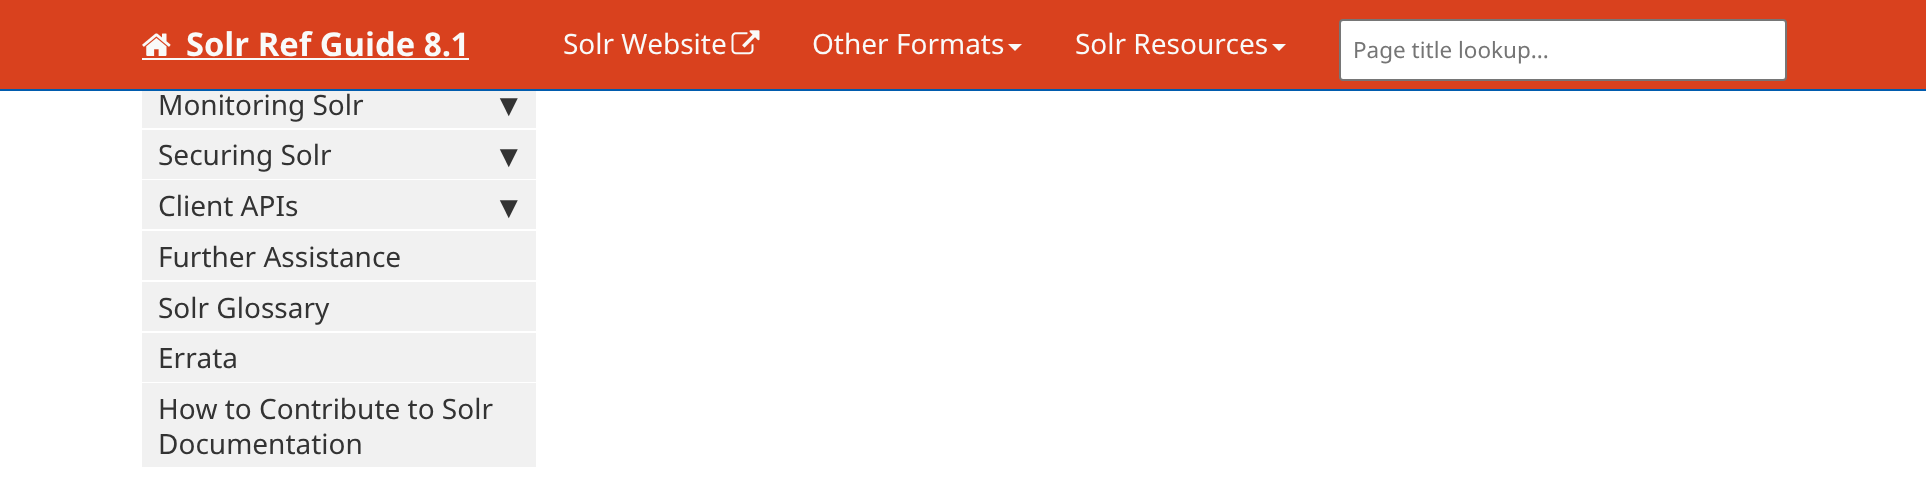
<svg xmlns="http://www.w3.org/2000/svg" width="1926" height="493">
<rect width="100%" height="100%" fill="#fff"/>
<rect width="1926" height="89" fill="#d9411e"/>
<rect y="89" width="1926" height="2" fill="#015cae"/>
<image x="142" y="33" width="29" height="23" href="media/1.png"/>
<text x="186" y="56" style="font-family:Noto Sans;font-size:32.75px;font-weight:bold;fill:#f9faf9">Solr Ref Guide 8.1</text>
<rect x="142" y="58" width="327" height="2" fill="#f9faf9"/>
<text x="563" y="54" style="font-family:Noto Sans;font-size:28px;fill:#f9faf9">Solr Website</text>
<image x="731" y="30" width="29" height="25" href="media/2.png"/>
<text x="812" y="54" style="font-family:Noto Sans;font-size:28px;fill:#f9faf9">Other Formats</text>
<path d="M1008 44h14l-7 7z" fill="#f9faf9"/>
<text x="1075" y="54" style="font-family:Noto Sans;font-size:28px;fill:#f9faf9">Solr Resources</text>
<path d="M1272 44h14l-7 7z" fill="#f9faf9"/>
<rect x="1340" y="20" width="446" height="60" rx="3" fill="#fff" stroke="#767676" stroke-width="2"/>
<text x="1353" y="58" style="font-family:Noto Sans;font-size:22.5px;fill:#757575">Page title lookup...</text>
<rect x="142" y="91" width="394" height="37" fill="#f1f1f1"/>
<text x="158" y="115" style="font-family:Noto Sans;font-size:28px;fill:#333">Monitoring Solr</text>
<text x="500" y="116" style="font-family:DejaVu Sans;font-size:33px;font-weight:bold;fill:#333">▾</text>
<rect x="142" y="130" width="394" height="49" fill="#f1f1f1"/>
<text x="158" y="165" style="font-family:Noto Sans;font-size:28px;fill:#333">Securing Solr</text>
<text x="500" y="167" style="font-family:DejaVu Sans;font-size:33px;font-weight:bold;fill:#333">▾</text>
<rect x="142" y="180" width="394" height="49" fill="#f1f1f1"/>
<text x="158" y="216" style="font-family:Noto Sans;font-size:28px;fill:#333">Client APIs</text>
<text x="500" y="218" style="font-family:DejaVu Sans;font-size:33px;font-weight:bold;fill:#333">▾</text>
<rect x="142" y="231" width="394" height="49" fill="#f1f1f1"/>
<text x="158" y="267" style="font-family:Noto Sans;font-size:28px;fill:#333">Further Assistance</text>
<rect x="142" y="282" width="394" height="49" fill="#f1f1f1"/>
<text x="158" y="318" style="font-family:Noto Sans;font-size:28px;fill:#333">Solr Glossary</text>
<rect x="142" y="333" width="394" height="49" fill="#f1f1f1"/>
<text x="158" y="368" style="font-family:Noto Sans;font-size:28px;fill:#333">Errata</text>
<rect x="142" y="383" width="394" height="84" fill="#f1f1f1"/>
<text x="158" y="419" style="font-family:Noto Sans;font-size:28px;fill:#333">How to Contribute to Solr</text>
<text x="158" y="454" style="font-family:Noto Sans;font-size:28px;fill:#333">Documentation</text>
</svg>
